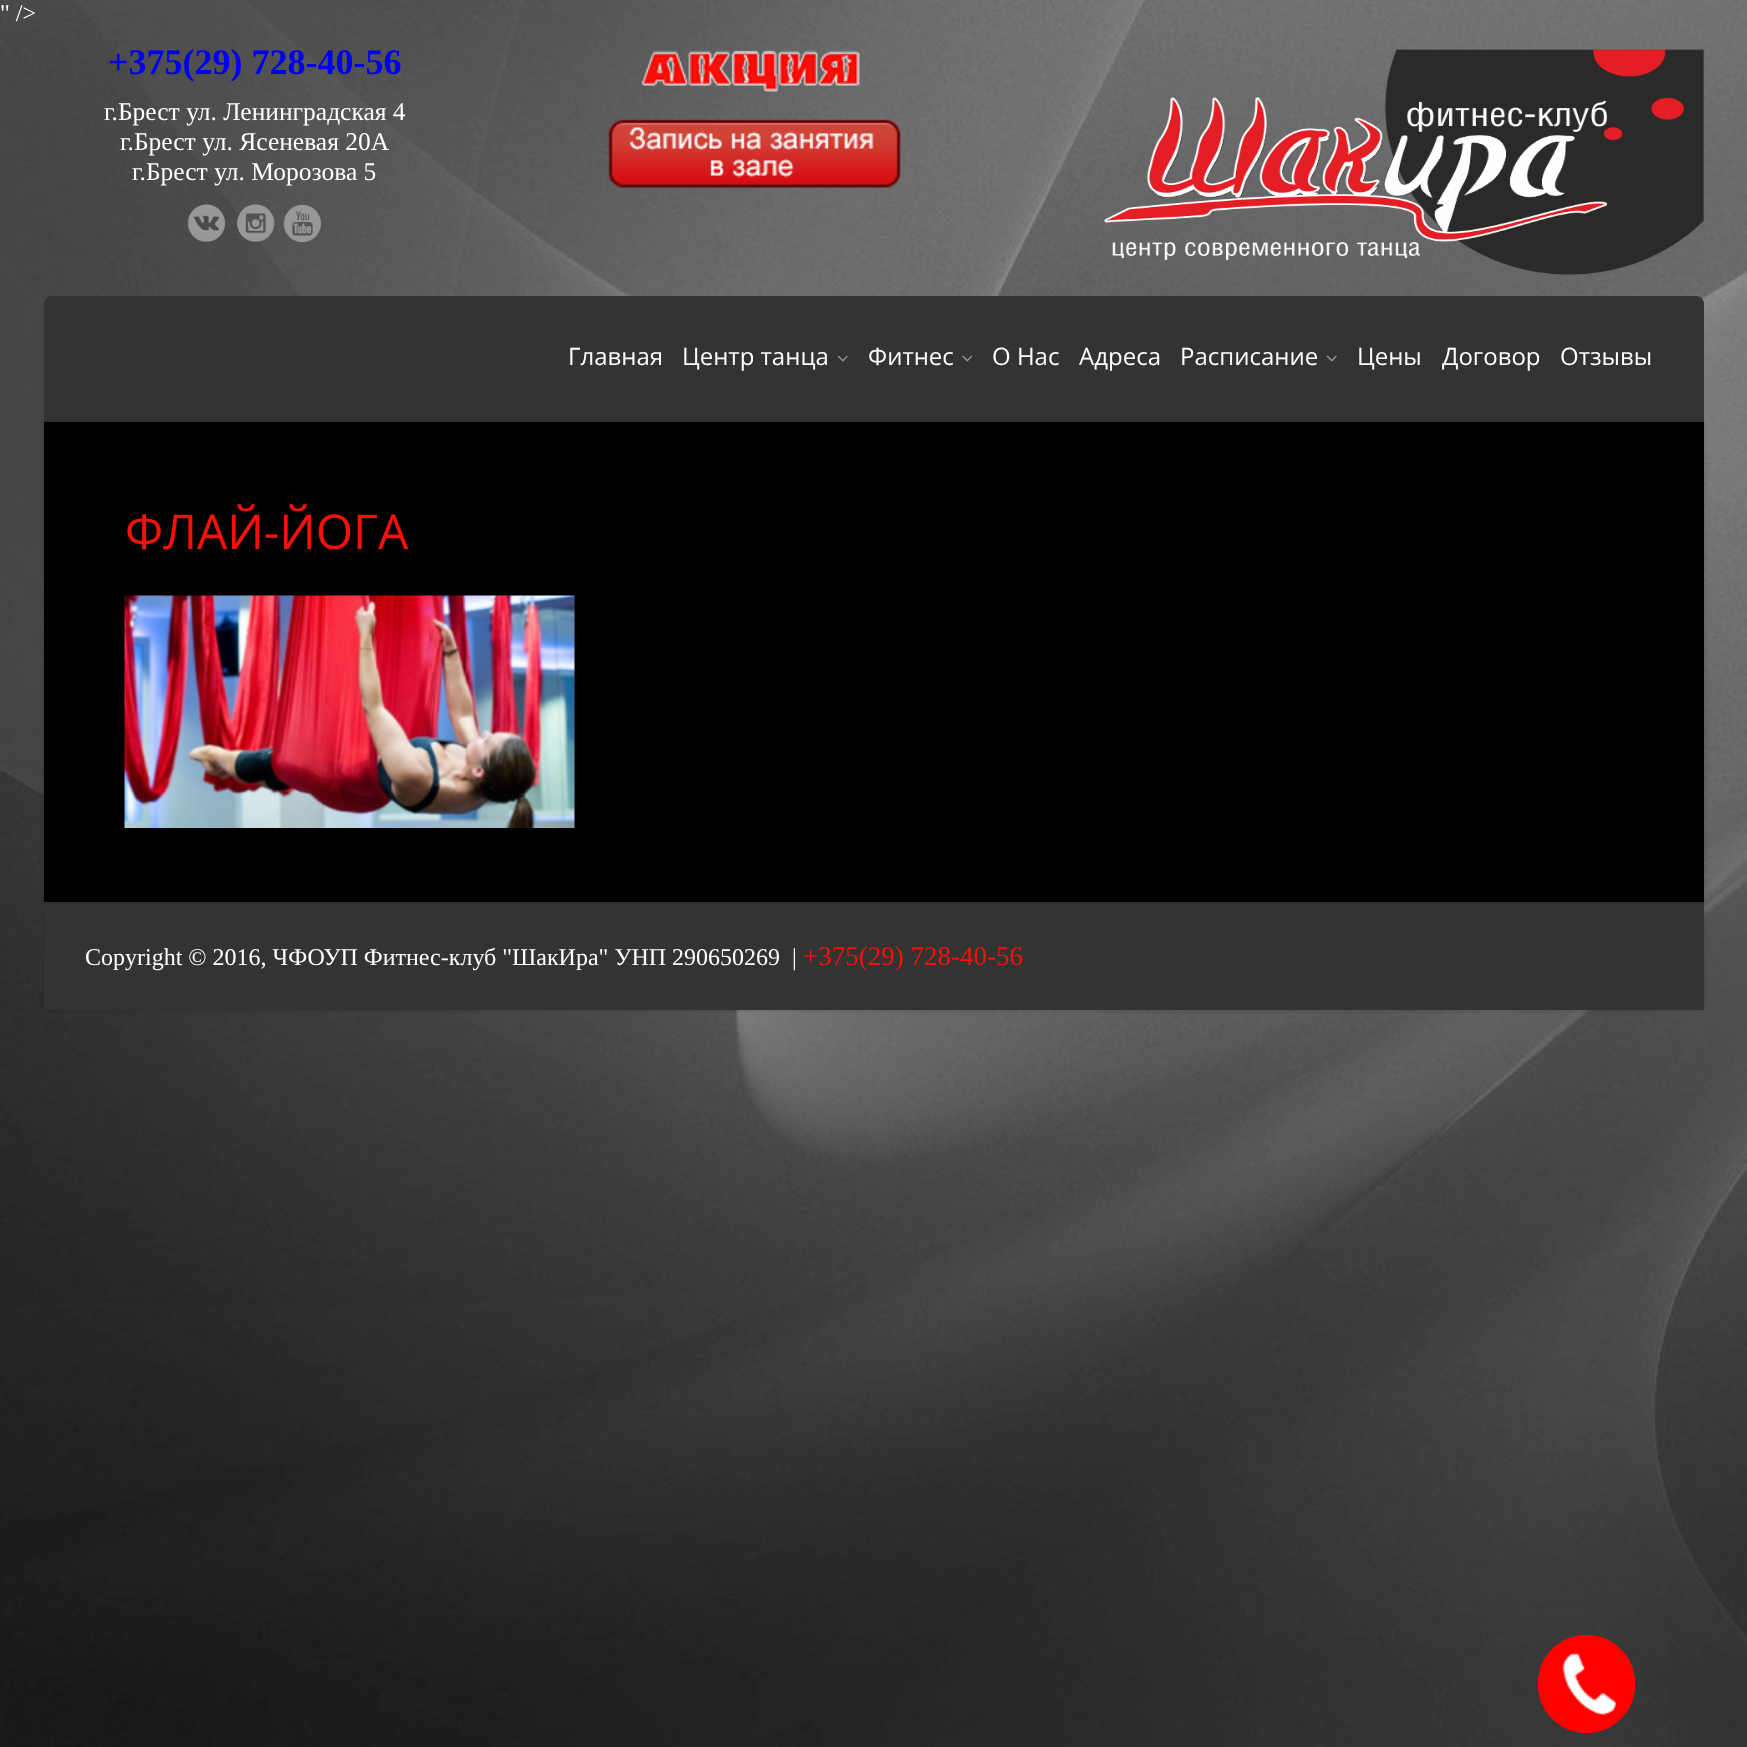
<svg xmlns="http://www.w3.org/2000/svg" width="1747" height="1747">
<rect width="100%" height="100%" fill="#fff"/>
<image x="0" y="0" width="1747" height="1747" href="media/1.png"/>
<text x="0" y="21" style="font-family:Liberation Serif;font-size:24px;fill:#fff">" /&gt;</text>
<text x="108" y="74" style="font-family:Liberation Serif;font-size:36px;font-weight:bold;fill:#00e">+375(29) 728-40-56</text>
<text x="104" y="120" style="font-family:Liberation Serif;font-size:25.5px;fill:#fff">г.Брест ул. Ленинградская 4</text>
<text x="120" y="150" style="font-family:Liberation Serif;font-size:25.5px;fill:#fff">г.Брест ул. Ясеневая 20А</text>
<text x="132" y="180" style="font-family:Liberation Serif;font-size:25.5px;fill:#fff">г.Брест ул. Морозова 5</text>
<image x="187" y="204" width="39" height="38" href="media/2.png"/>
<image x="237" y="204" width="38" height="38" href="media/3.png"/>
<image x="283" y="205" width="38" height="37" href="media/4.png"/>
<image x="641" y="50" width="219" height="42" href="media/5.png"/>
<image x="608" y="119" width="293" height="69" href="media/6.png"/>
<image x="1104" y="49" width="600" height="226" href="media/7.png"/>
<path d="M52 296h1644c4.5 0 8 3.5 8 8v118h-1660v-118c0-4.5 3.5-8 8-8z" fill="#333"/>
<text x="568" y="365" style="font-family:Open Sans;font-size:24px;fill:#fff">Главная</text>
<text x="682" y="365" style="font-family:Open Sans;font-size:24px;fill:#fff">Центр танца</text>
<image x="837" y="355" width="11" height="7" href="media/8.png"/>
<text x="868" y="365" style="font-family:Open Sans;font-size:24px;fill:#fff">Фитнес</text>
<image x="962" y="355" width="11" height="7" href="media/9.png"/>
<text x="992" y="365" style="font-family:Open Sans;font-size:24px;fill:#fff">О Нас</text>
<text x="1079" y="365" style="font-family:Open Sans;font-size:24px;fill:#fff">Адреса</text>
<text x="1180" y="365" style="font-family:Open Sans;font-size:24px;fill:#fff">Расписание</text>
<image x="1326" y="355" width="11" height="7" href="media/8.png"/>
<text x="1357" y="365" style="font-family:Open Sans;font-size:24px;fill:#fff">Цены</text>
<text x="1442" y="365" style="font-family:Open Sans;font-size:24px;fill:#fff">Договор</text>
<text x="1560" y="365" style="font-family:Open Sans;font-size:24px;fill:#fff">Отзывы</text>
<rect x="44" y="422" width="1660" height="480" fill="#00000033" filter="blur(2px)"/>
<rect x="44" y="422" width="1660" height="480" fill="#000"/>
<text x="125" y="549" style="font-family:Open Sans;font-size:48px;fill:#f71109">ФЛАЙ-ЙОГА</text>
<image x="124" y="595" width="451" height="233" href="media/10.png"/>
<rect x="44" y="902" width="1660" height="108" rx="8" fill="#00000033" filter="blur(2px)"/>
<rect x="44" y="904" width="1660" height="106" fill="#333"/>
<rect x="44" y="902" width="1660" height="2" fill="#303030"/>
<text x="85" y="965" style="font-family:Liberation Serif;font-size:24px;fill:#fff" xml:space="preserve">Copyright © 2016, ЧФОУП Фитнес-клуб "ШакИра" УНП 290650269  |</text>
<text x="803" y="965" style="font-family:Liberation Serif;font-size:27px;fill:#f71109">+375(29) 728-40-56</text>
<rect x="1539" y="1636" width="95" height="96" rx="47.5" fill="none" stroke="#f00" stroke-width="2"/>
<rect x="1538" y="1635" width="97" height="98" rx="48.5" fill="#f00"/>
<image x="1562" y="1652" width="54" height="63" href="media/11.png"/>
</svg>
